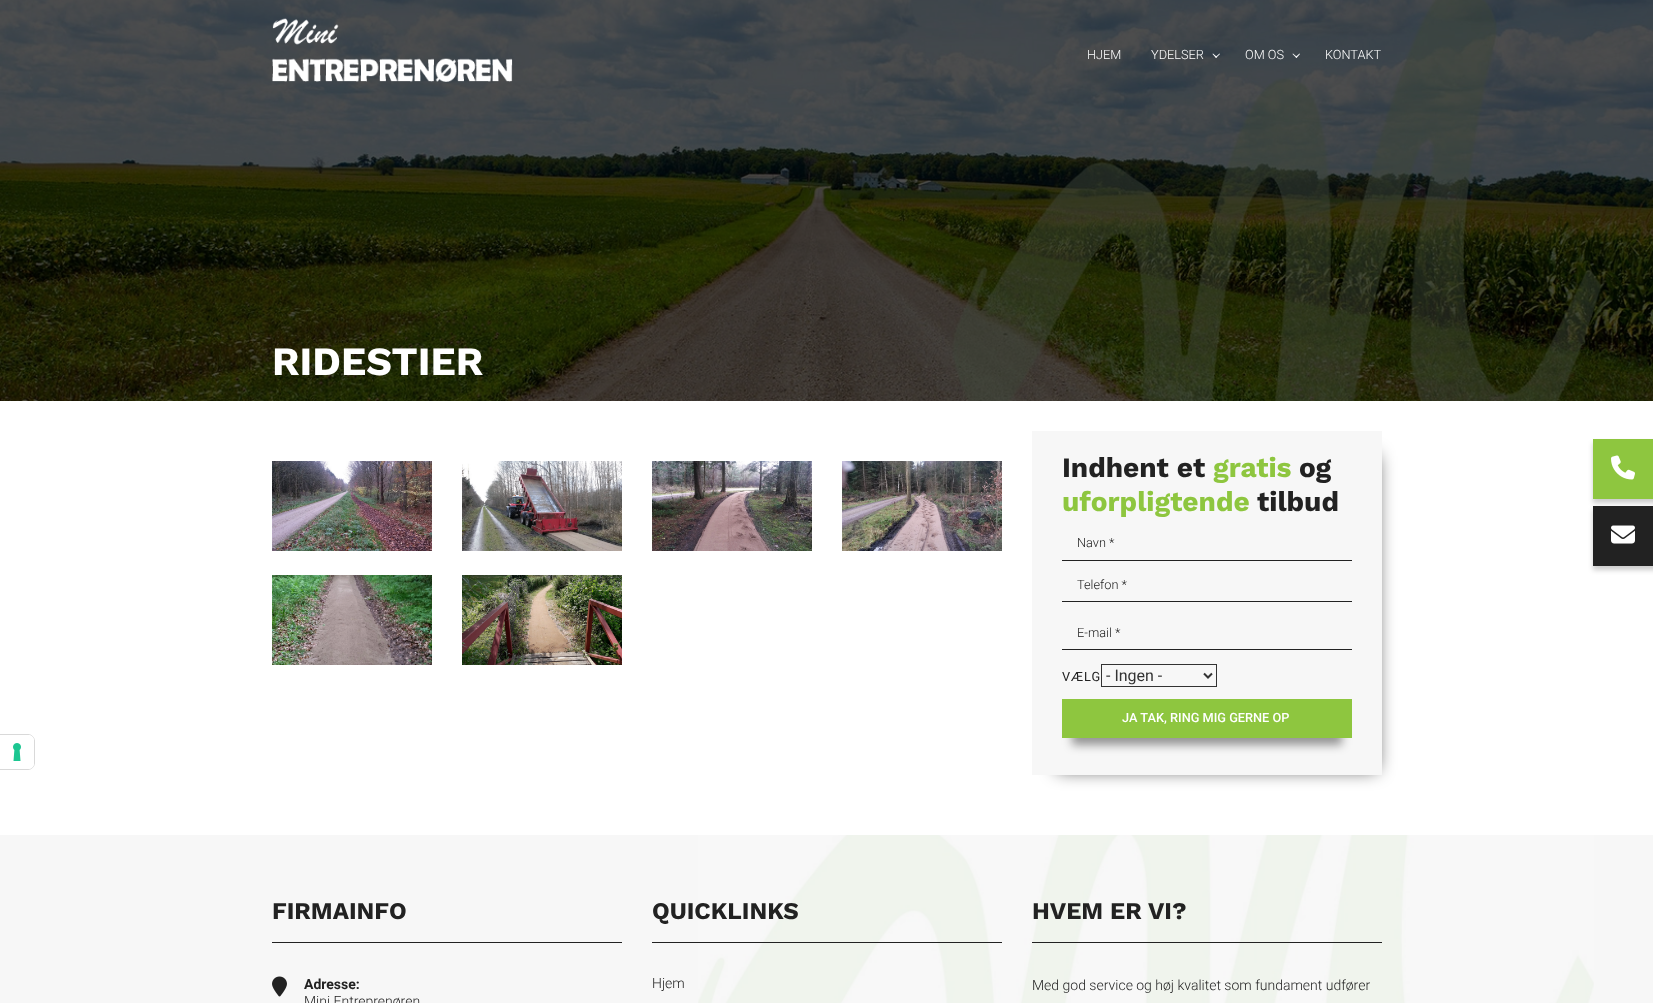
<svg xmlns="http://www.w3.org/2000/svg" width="1653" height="1003">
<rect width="100%" height="100%" fill="#fff"/>
<path d="M-.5 734.5h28.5c3.5 0 6.5 3 6.5 6.5v22c0 3.5-3 6.5-6.5 6.5h-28.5z" fill="none" stroke="#d9d9d9"/>
<path d="M0 735h28c3.5 0 6 2.5 6 6v22c0 3.5-2.5 6-6 6h-28z" fill="#fff"/>
<image x="13" y="743" width="8" height="18" href="media/1.png"/>
<rect width="1653" height="401" fill="#000"/>
<image x="0" y="0" width="1653" height="401" href="media/3.png"/>
<image x="272" y="18" width="241" height="64" href="media/2.png"/>
<text x="1087" y="59" style="font-family:Roboto;font-size:12.75px;font-weight:300;fill:#fff">HJEM</text>
<text x="1151" y="59" style="font-family:Roboto;font-size:12.75px;font-weight:300;fill:#fff">YDELSER</text>
<path d="M1220 54l-4 4l-.5-1l4-3.5z" fill="#fff"/>
<path d="M1217 57l-1 1l-3.5-4l.5-.5z" fill="#fff"/>
<text x="1245" y="59" style="font-family:Roboto;font-size:12.75px;font-weight:300;fill:#fff">OM OS</text>
<path d="M1300 54l-3.5 4l-1-1l4-3.5z" fill="#fff"/>
<path d="M1297 57l-.5 1l-4-4l.5-.5z" fill="#fff"/>
<text x="1325" y="59" style="font-family:Roboto;font-size:12.75px;font-weight:300;fill:#fff">KONTAKT</text>
<text x="272" y="375" style="font-family:Work Sans;font-size:40px;font-weight:bold;fill:#fff">RIDESTIER</text>
<image x="272" y="461" width="160" height="90" href="media/4.png"/>
<image x="462" y="461" width="160" height="90" href="media/5.png"/>
<image x="652" y="461" width="160" height="90" href="media/6.png"/>
<image x="842" y="461" width="160" height="90" href="media/7.png"/>
<image x="272" y="575" width="160" height="90" href="media/8.png"/>
<image x="462" y="575" width="160" height="90" href="media/9.png"/>
<rect x="1057" y="456" width="320" height="314" fill="#000000bf" filter="blur(9px)"/>
<rect x="1032" y="431" width="350" height="344" fill="#f7f7f7"/>
<text x="1062" y="477" style="font-family:Work Sans;font-size:28px;font-weight:bold;fill:#222">Indhent et</text>
<text x="1213" y="477" style="font-family:Work Sans;font-size:28px;font-weight:bold;fill:#8ec63f">gratis</text>
<text x="1299" y="477" style="font-family:Work Sans;font-size:28px;font-weight:bold;fill:#222">og</text>
<text x="1062" y="511" style="font-family:Work Sans;font-size:28px;font-weight:bold;fill:#8ec63f">uforpligtende</text>
<text x="1257" y="511" style="font-family:Work Sans;font-size:28px;font-weight:bold;fill:#222">tilbud</text>
<rect x="1062" y="560" width="290" height="1" fill="#222"/>
<text x="1077" y="547" style="font-family:Roboto;font-size:12.75px;font-weight:300;fill:#222">Navn *</text>
<rect x="1062" y="601" width="290" height="1" fill="#222"/>
<text x="1077" y="589" style="font-family:Roboto;font-size:12.75px;font-weight:300;fill:#222">Telefon *</text>
<rect x="1062" y="649" width="290" height="1" fill="#222"/>
<text x="1077" y="637" style="font-family:Roboto;font-size:12.75px;font-weight:300;fill:#222">E-mail *</text>
<text x="1062" y="681" style="font-family:Roboto;font-size:12.75px;letter-spacing:1px;fill:#222">VÆLG</text>
<rect x="1101.5" y="664.5" width="115" height="22" fill="none" stroke="#333"/>
<path d="M1204 673.5l4 4l4-4" fill="none" stroke="#333" stroke-width="2"/>
<text x="1106" y="681" style="font-family:Roboto;font-size:16px;fill:#333">- Ingen -</text>
<rect x="1072" y="726" width="270" height="19" fill="#00000066" filter="blur(5px)"/>
<rect x="1062" y="699" width="290" height="39" fill="#8ec63f"/>
<text x="1122" y="722" style="font-family:Roboto;font-size:12.75px;font-weight:500;fill:#fff">JA TAK, RING MIG GERNE OP</text>
<rect x="1593" y="443" width="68" height="60" fill="#00000033" filter="blur(2.5px)"/>
<rect x="1593" y="439" width="60" height="60" fill="#8ec63f"/>
<image x="1611" y="455" width="24" height="25" href="media/10.png"/>
<rect x="1593" y="510" width="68" height="60" fill="#00000033" filter="blur(2.5px)"/>
<rect x="1593" y="506" width="60" height="60" fill="#222"/>
<image x="1611" y="525" width="24" height="19" href="media/11.png"/>
<rect y="835" width="1653" height="168" fill="#f7f7f7"/>
<image x="698" y="835" width="896" height="168" href="media/12.png"/>
<rect x="272" y="942" width="350" height="1" fill="#222"/>
<text x="272" y="919" style="font-family:Work Sans;font-size:24px;font-weight:bold;fill:#222">FIRMAINFO</text>
<image x="272" y="976" width="15" height="21" href="media/13.png"/>
<text x="304" y="989" style="font-family:Roboto;font-size:14px;font-weight:bold;fill:#222">Adresse:</text>
<text x="304" y="1006" style="font-family:Roboto;font-size:14px;font-weight:300;fill:#222">Mini Entreprenøren</text>
<rect x="652" y="942" width="350" height="1" fill="#222"/>
<text x="652" y="919" style="font-family:Work Sans;font-size:24px;font-weight:bold;fill:#222">QUICKLINKS</text>
<text x="652" y="988" style="font-family:Roboto;font-size:14px;font-weight:300;fill:#222">Hjem</text>
<rect x="1032" y="942" width="350" height="1" fill="#222"/>
<text x="1032" y="919" style="font-family:Work Sans;font-size:24px;font-weight:bold;fill:#222">HVEM ER VI?</text>
<text x="1032" y="990" style="font-family:Roboto;font-size:14px;font-weight:300;fill:#222">Med god service og høj kvalitet som fundament udfører</text>
</svg>
